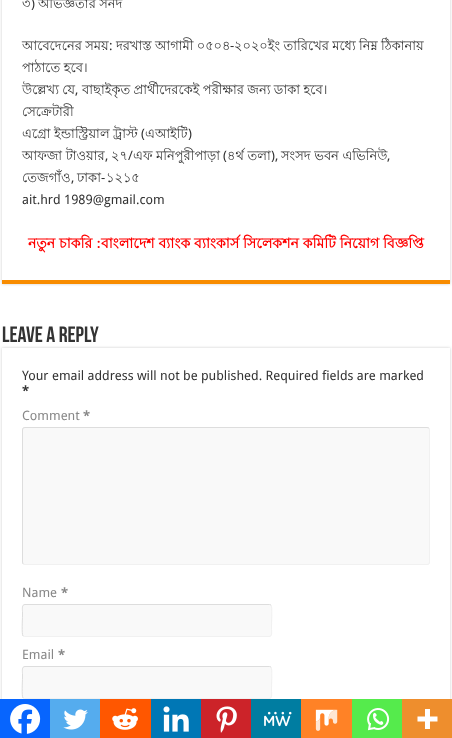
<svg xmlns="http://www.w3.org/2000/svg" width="452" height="738">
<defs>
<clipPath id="clip1"><path d="M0 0h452v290h-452zm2-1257h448v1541h-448z" clip-rule="evenodd"/></clipPath>
<clipPath id="clip2"><path d="M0 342h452v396h-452zm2 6h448v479h-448z" clip-rule="evenodd"/></clipPath>
</defs>
<rect width="100%" height="100%" fill="#fff"/>
<g clip-path="url(#clip1)">
<rect x="2" y="-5" width="448" height="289" fill="#cacaca" filter="blur(1.5px)"/>
</g>
<rect x="2" y="280" width="448" height="4" fill="#f88c00"/>
<text x="22" y="8" style="font-family:Lohit Bengali;font-size:13px;fill:#333">৩</text>
<text x="31" y="8" style="font-family:Droid Sans;font-size:13px;fill:#333">)</text>
<text x="38" y="8" word-spacing="-0.25" style="font-family:Lohit Bengali;font-size:13px;fill:#333">অভিজ্ঞতার সনদ</text>
<text x="22" y="50" word-spacing="-0.25" style="font-family:Lohit Bengali;font-size:13px;fill:#333">আবেদেনের সময়</text>
<text x="109" y="50" style="font-family:Droid Sans;font-size:13px;fill:#333">:</text>
<text x="116" y="50" word-spacing="-0.25" style="font-family:Lohit Bengali;font-size:13px;fill:#333">দরখাস্ত আগামী ০৫০৪</text>
<text x="230" y="50" style="font-family:Droid Sans;font-size:13px;fill:#333">-</text>
<text x="234" y="50" word-spacing="-0.25" style="font-family:Lohit Bengali;font-size:13px;fill:#333">২০২০ইং তারিখের মধ্যে নিম্ন ঠিকানায়</text>
<text x="22" y="72" word-spacing="-0.25" style="font-family:Lohit Bengali;font-size:13px;fill:#333">পাঠাতে হবে।</text>
<text x="22" y="94" word-spacing="-0.25" style="font-family:Lohit Bengali;font-size:13px;fill:#333">উল্লেখ্য যে</text>
<text x="75" y="94" style="font-family:Droid Sans;font-size:13px;fill:#333">,</text>
<text x="82" y="94" word-spacing="-0.25" style="font-family:Lohit Bengali;font-size:13px;fill:#333">বাছাইকৃত প্রার্থীদেরকেই পরীক্ষার জন্য ডাকা হবে।</text>
<text x="22" y="116" style="font-family:Lohit Bengali;font-size:13px;fill:#333">সেক্রেটারী</text>
<text x="22" y="138" word-spacing="-0.25" style="font-family:Lohit Bengali;font-size:13px;fill:#333">এগ্রো ইন্ডাস্ট্রিয়াল ট্রাস্ট</text>
<text x="141" y="138" style="font-family:Droid Sans;font-size:13px;fill:#333">(</text>
<text x="145" y="138" style="font-family:Lohit Bengali;font-size:13px;fill:#333">এআইটি</text>
<text x="188" y="138" style="font-family:Droid Sans;font-size:13px;fill:#333">)</text>
<text x="22" y="160" style="font-family:Lohit Bengali;font-size:13px;fill:#333">আফজা টাওয়ার</text>
<text x="105" y="160" style="font-family:Droid Sans;font-size:13px;fill:#333">,</text>
<text x="111" y="160" style="font-family:Lohit Bengali;font-size:13px;fill:#333">২৭</text>
<text x="128" y="160" style="font-family:Droid Sans;font-size:13px;fill:#333">/</text>
<text x="133" y="160" style="font-family:Lohit Bengali;font-size:13px;fill:#333">এফ মনিপুরীপাড়া</text>
<text x="223" y="160" style="font-family:Droid Sans;font-size:13px;fill:#333">(</text>
<text x="227" y="160" style="font-family:Lohit Bengali;font-size:13px;fill:#333">৪র্থ তলা</text>
<text x="271" y="160" style="font-family:Droid Sans;font-size:13px;fill:#333">),</text>
<text x="281" y="160" style="font-family:Lohit Bengali;font-size:13px;fill:#333">সংসদ ভবন এভিনিউ</text>
<text x="387" y="160" style="font-family:Droid Sans;font-size:13px;fill:#333">,</text>
<text x="22" y="182" style="font-family:Lohit Bengali;font-size:13px;fill:#333">তেজগাঁও</text>
<text x="77" y="182" style="font-family:Lohit Bengali;font-size:13px;fill:#333">ঢাকা</text>
<text x="101" y="182" style="font-family:Droid Sans;font-size:13px;fill:#333">-</text>
<text x="106" y="182" style="font-family:Lohit Bengali;font-size:13px;fill:#333">১২১৫</text>
<text x="71" y="182" style="font-family:Droid Sans;font-size:13px;fill:#333">,</text>
<text x="22" y="204" style="font-family:Droid Sans;font-size:13px;fill:#333">ait.hrd 1989@gmail.com</text>
<text x="28" y="248" style="font-family:Lohit Bengali;font-size:14px;font-weight:bold;fill:#f00">নতুন চাকরি :বাংলাদেশ ব্যাংক ব্যাংকার্স সিলেকশন কমিটি নিয়োগ বিজ্ঞপ্তি</text>
<g clip-path="url(#clip2)">
<rect x="2" y="348" width="448" height="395" fill="#cacaca" filter="blur(1.5px)"/>
</g>
<rect y="699" width="50" height="39" fill="#0765fe"/>
<image x="10" y="704" width="31" height="30" href="media/1.png"/>
<rect x="50" y="699" width="50" height="39" fill="#55acee"/>
<image x="63" y="709" width="25" height="21" href="media/2.png"/>
<rect x="100" y="699" width="51" height="39" fill="#ff5700"/>
<image x="112" y="708" width="26" height="22" href="media/3.png"/>
<rect x="151" y="699" width="50" height="39" fill="#0077b5"/>
<image x="163" y="706" width="26" height="26" href="media/4.png"/>
<rect x="201" y="699" width="50" height="39" fill="#cc2329"/>
<image x="216" y="706" width="21" height="27" href="media/5.png"/>
<rect x="251" y="699" width="50" height="39" fill="#007da1"/>
<image x="264" y="711" width="28" height="16" href="media/6.png"/>
<rect x="301" y="699" width="51" height="39" fill="#ff8226"/>
<image x="315" y="709" width="23" height="22" href="media/7.png"/>
<rect x="352" y="699" width="50" height="39" fill="#55eb4c"/>
<image x="367" y="708" width="23" height="23" href="media/8.png"/>
<rect x="402" y="699" width="50" height="39" fill="#ee8e2d"/>
<image x="417" y="709" width="21" height="20" href="media/9.png"/>
<text x="2" y="342" style="font-family:Bebas Neue;font-size:22px;font-weight:bold;fill:#333">Leave a Reply</text>
<text x="22" y="380" style="font-family:Droid Sans;font-size:13px;fill:#333">Your email address will not be published. Required fields are marked</text>
<text x="22" y="395" style="font-family:Droid Sans;font-size:13px;font-weight:bold;fill:#333">*</text>
<text x="22" y="420" style="font-family:Droid Sans;font-size:13px;fill:#888">Comment</text>
<text x="83" y="420" style="font-family:Droid Sans;font-size:13px;font-weight:bold;fill:#888">*</text>
<rect x="22" y="427" width="408" height="138" rx="3" fill="#f9f9f9"/>
<path d="M429 428l.5 2v132l-.5 2l-2 .5h-402l-2-.5" fill="none" stroke="#f1f1f1"/>
<path d="M23 564l-.5-2v-132l.5-2l2-.5h402l2 .5" fill="none" stroke="#ddd"/>
<text x="22" y="597" style="font-family:Droid Sans;font-size:13px;fill:#888">Name</text>
<text x="61" y="597" style="font-family:Droid Sans;font-size:13px;font-weight:bold;fill:#888">*</text>
<rect x="22" y="604" width="250" height="33" rx="3" fill="#f9f9f9"/>
<path d="M271 605c1.5 2 .5 17 .5 20v4.5c0 2 1 7-2.5 7h-244.5l-1.5-.5" fill="none" stroke="#f1f1f1"/>
<path d="M23 636c-1.5-2-.5-17-.5-20v-4.5c0-2-1-7 2.5-7h244.5l1.5 .5" fill="none" stroke="#ddd"/>
<text x="22" y="659" style="font-family:Droid Sans;font-size:13px;fill:#888">Email</text>
<text x="58" y="659" style="font-family:Droid Sans;font-size:13px;font-weight:bold;fill:#888">*</text>
<rect x="22" y="666" width="250" height="33" rx="3" fill="#f9f9f9"/>
<path d="M271 667c1.5 2 .5 17 .5 20v4.5c0 2 1 7-2.5 7h-244.5l-1.5-.5" fill="none" stroke="#f1f1f1"/>
<path d="M23 698c-1.5-2-.5-17-.5-20v-4.5c0-2-1-7 2.5-7h244.5l1.5 .5" fill="none" stroke="#ddd"/>
</svg>
